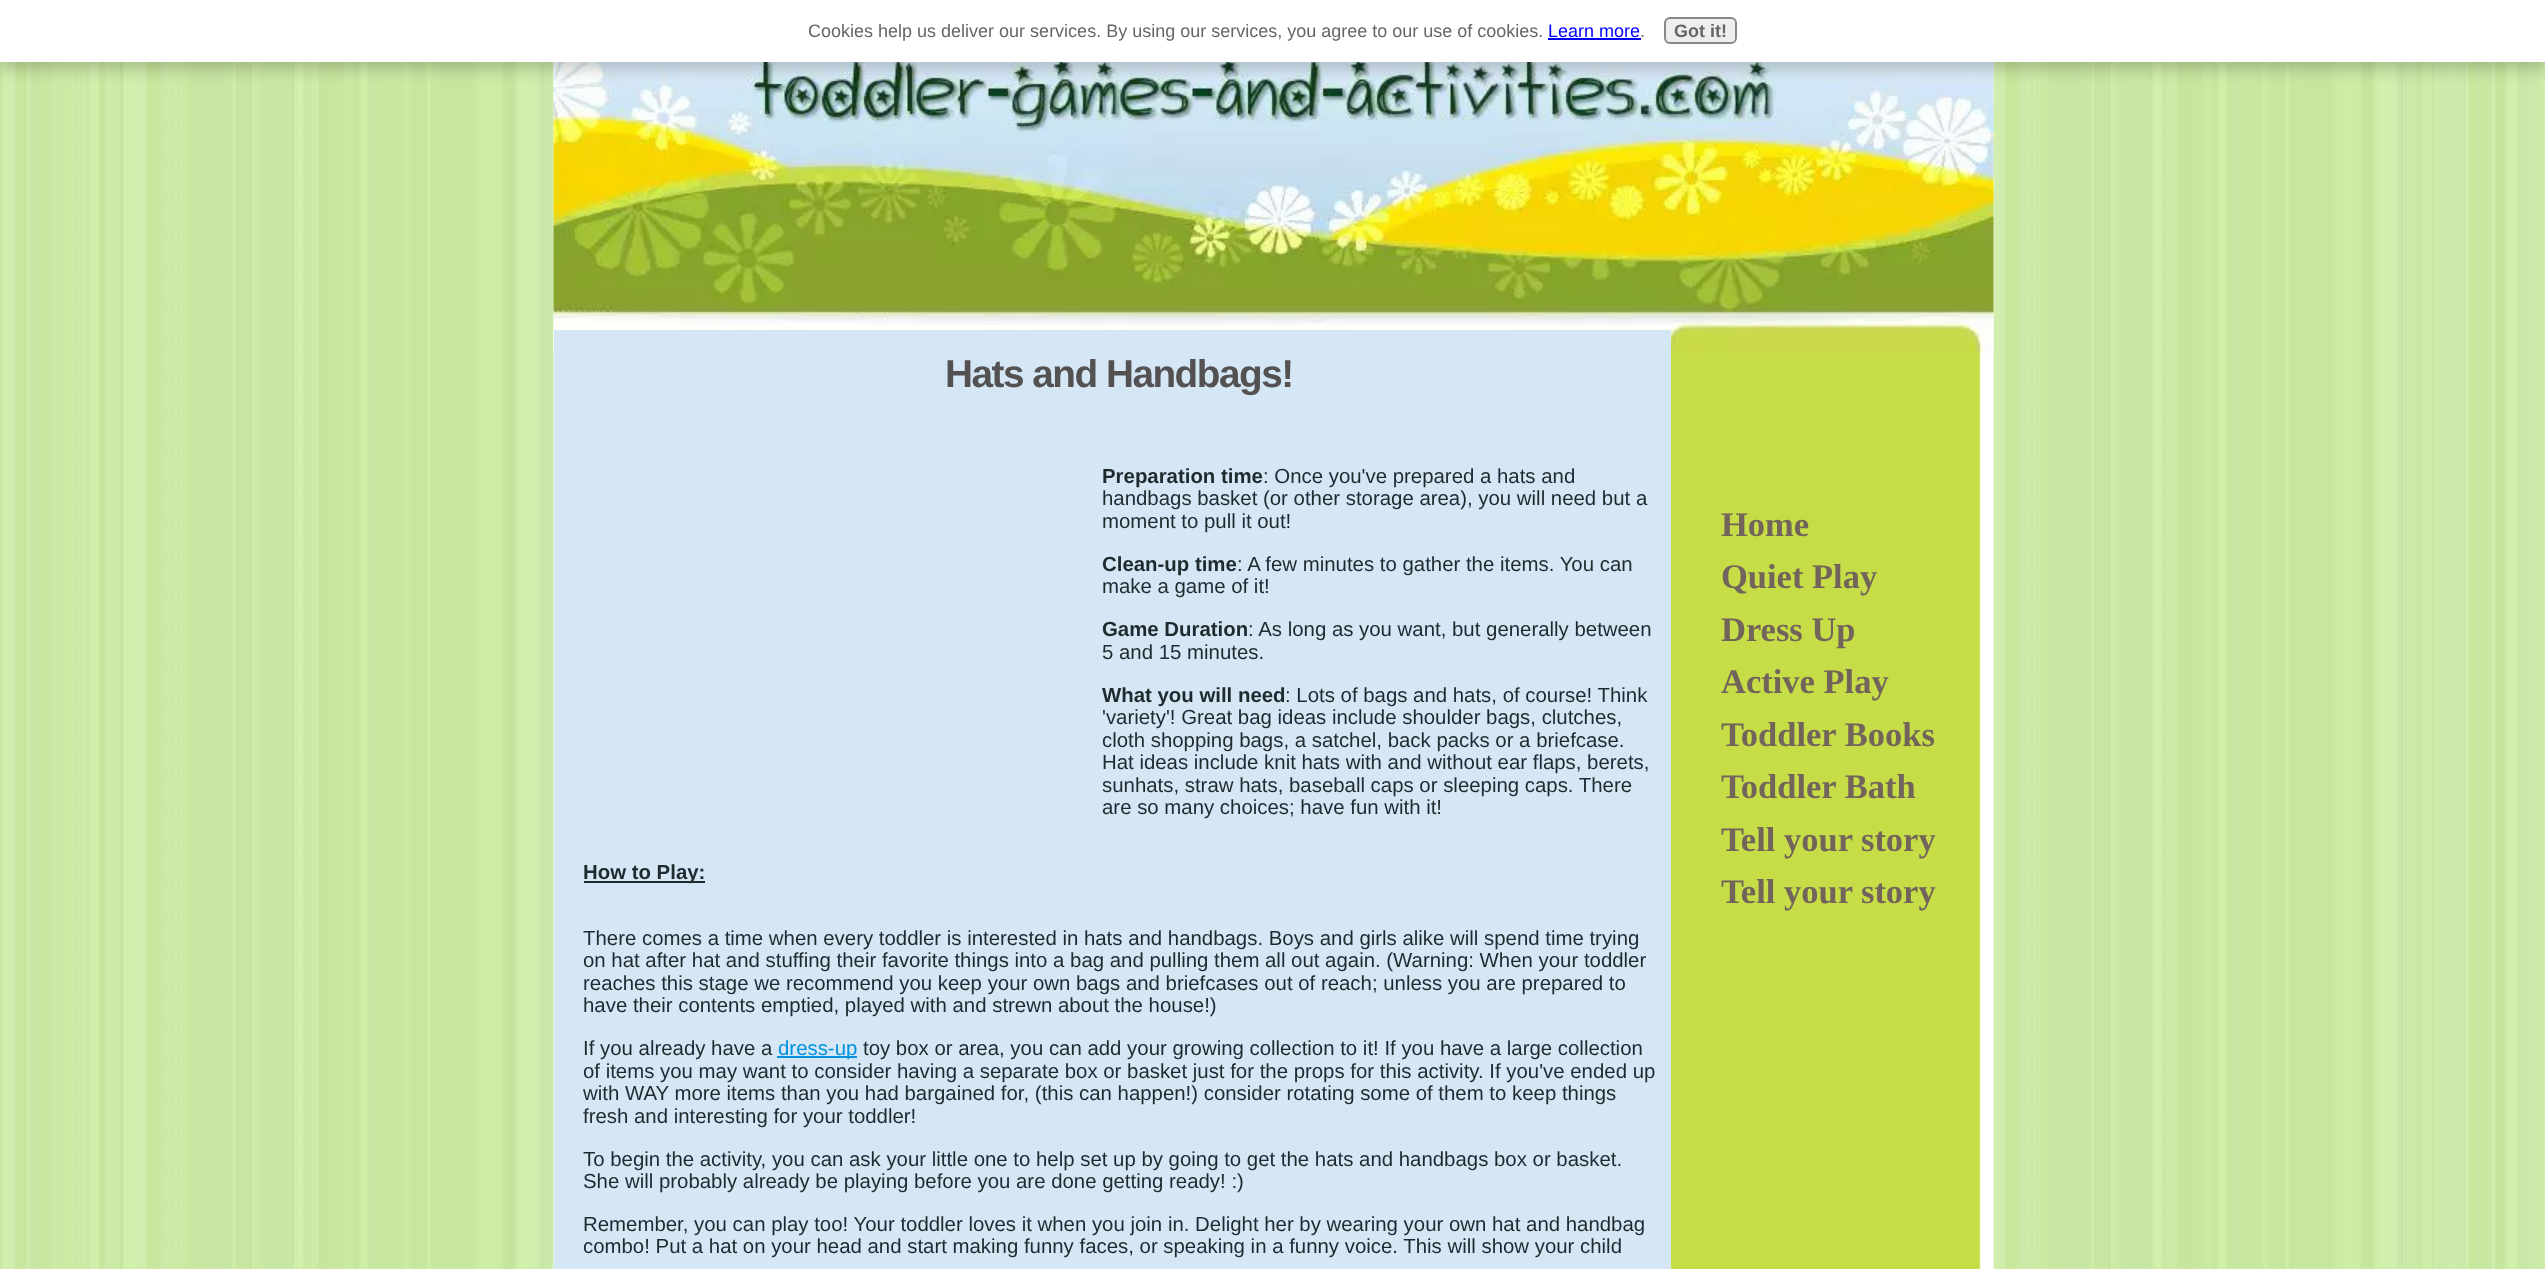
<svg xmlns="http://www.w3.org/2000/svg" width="2545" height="1269">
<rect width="100%" height="100%" fill="#fff"/>
<image x="0" y="62" width="2545" height="1207" href="media/1.png"/>
<image x="553" y="62" width="1441" height="1207" href="media/2.png"/>
<image x="553" y="62" width="1441" height="291" href="media/3.png"/>
<rect x="-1" y="5" width="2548" height="64" fill="#00000033" filter="blur(7.5px)"/>
<rect width="2545" height="62" fill="#fff"/>
<text x="808" y="37" style="font-family:Liberation Sans;font-size:18px;fill:#666">Cookies help us deliver our services. By using our services, you agree to our use of cookies.</text>
<text x="1548" y="37" style="font-family:Liberation Sans;font-size:18px;fill:#00f">Learn more</text>
<rect x="1548" y="38" width="93" height="2" fill="#00f"/>
<text x="1640" y="37" style="font-family:Liberation Sans;font-size:18px;fill:#666">.</text>
<rect x="1665" y="18" width="71" height="25" rx="5" fill="#eee" stroke="#888" stroke-width="2"/>
<text x="1674" y="37" style="font-family:Liberation Sans;font-size:18px;font-weight:bold;fill:#666">Got it!</text>
<rect x="554" y="330" width="1117" height="939" fill="#d5e7f5"/>
<text x="945" y="387" style="font-family:Liberation Sans;font-size:38.75px;font-weight:bold;letter-spacing:-1.5px;fill:#535152">Hats and Handbags!</text>
<text x="1102" y="483" style="font-family:Liberation Sans;font-size:20.4px;font-weight:bold;fill:#1f2a2f">Preparation time</text>
<text x="1263" y="483" style="font-family:Liberation Sans;font-size:20.4px;fill:#1f2a2f">: Once you've prepared a hats and</text>
<text x="1102" y="505" style="font-family:Liberation Sans;font-size:20.4px;fill:#1f2a2f">handbags basket (or other storage area), you will need but a</text>
<text x="1102" y="528" style="font-family:Liberation Sans;font-size:20.4px;fill:#1f2a2f">moment to pull it out!</text>
<text x="1102" y="571" style="font-family:Liberation Sans;font-size:20.4px;font-weight:bold;fill:#1f2a2f">Clean-up time</text>
<text x="1237" y="571" style="font-family:Liberation Sans;font-size:20.4px;fill:#1f2a2f">: A few minutes to gather the items. You can</text>
<text x="1102" y="593" style="font-family:Liberation Sans;font-size:20.4px;fill:#1f2a2f">make a game of it!</text>
<text x="1102" y="636" style="font-family:Liberation Sans;font-size:20.4px;font-weight:bold;fill:#1f2a2f">Game Duration</text>
<text x="1248" y="636" style="font-family:Liberation Sans;font-size:20.4px;fill:#1f2a2f">: As long as you want, but generally between</text>
<text x="1102" y="659" style="font-family:Liberation Sans;font-size:20.4px;fill:#1f2a2f">5 and 15 minutes.</text>
<text x="1102" y="702" style="font-family:Liberation Sans;font-size:20.4px;font-weight:bold;fill:#1f2a2f">What you will need</text>
<text x="1285" y="702" style="font-family:Liberation Sans;font-size:20.4px;fill:#1f2a2f">: Lots of bags and hats, of course! Think</text>
<text x="1102" y="724" style="font-family:Liberation Sans;font-size:20.4px;fill:#1f2a2f">'variety'! Great bag ideas include shoulder bags, clutches,</text>
<text x="1102" y="747" style="font-family:Liberation Sans;font-size:20.4px;fill:#1f2a2f">cloth shopping bags, a satchel, back packs or a briefcase.</text>
<text x="1102" y="769" style="font-family:Liberation Sans;font-size:20.4px;fill:#1f2a2f">Hat ideas include knit hats with and without ear flaps, berets,</text>
<text x="1102" y="792" style="font-family:Liberation Sans;font-size:20.4px;fill:#1f2a2f">sunhats, straw hats, baseball caps or sleeping caps. There</text>
<text x="1102" y="814" style="font-family:Liberation Sans;font-size:20.4px;fill:#1f2a2f">are so many choices; have fun with it!</text>
<rect x="584" y="881" width="121" height="2" fill="#1f2a2f"/>
<text x="583" y="879" style="font-family:Liberation Sans;font-size:20.4px;font-weight:bold;fill:#1f2a2f">How to Play:</text>
<text x="583" y="945" style="font-family:Liberation Sans;font-size:20.4px;fill:#1f2a2f">There comes a time when every toddler is interested in hats and handbags. Boys and girls alike will spend time trying</text>
<text x="583" y="967" style="font-family:Liberation Sans;font-size:20.4px;fill:#1f2a2f">on hat after hat and stuffing their favorite things into a bag and pulling them all out again. (Warning: When your toddler</text>
<text x="583" y="990" style="font-family:Liberation Sans;font-size:20.4px;fill:#1f2a2f">reaches this stage we recommend you keep your own bags and briefcases out of reach; unless you are prepared to</text>
<text x="583" y="1012" style="font-family:Liberation Sans;font-size:20.4px;fill:#1f2a2f">have their contents emptied, played with and strewn about the house!)</text>
<text x="583" y="1055" style="font-family:Liberation Sans;font-size:20.4px;fill:#1f2a2f">If you already have a</text>
<rect x="777" y="1056" width="80" height="2" fill="#0291dd"/>
<text x="778" y="1055" style="font-family:Liberation Sans;font-size:20.4px;fill:#0291dd">dress-up</text>
<text x="863" y="1055" style="font-family:Liberation Sans;font-size:20.4px;fill:#1f2a2f">toy box or area, you can add your growing collection to it! If you have a large collection</text>
<text x="583" y="1078" style="font-family:Liberation Sans;font-size:20.4px;fill:#1f2a2f">of items you may want to consider having a separate box or basket just for the props for this activity. If you've ended up</text>
<text x="583" y="1100" style="font-family:Liberation Sans;font-size:20.4px;fill:#1f2a2f">with WAY more items than you had bargained for, (this can happen!) consider rotating some of them to keep things</text>
<text x="583" y="1123" style="font-family:Liberation Sans;font-size:20.4px;fill:#1f2a2f">fresh and interesting for your toddler!</text>
<text x="583" y="1166" style="font-family:Liberation Sans;font-size:20.4px;fill:#1f2a2f">To begin the activity, you can ask your little one to help set up by going to get the hats and handbags box or basket.</text>
<text x="583" y="1188" style="font-family:Liberation Sans;font-size:20.4px;fill:#1f2a2f">She will probably already be playing before you are done getting ready! :)</text>
<text x="583" y="1231" style="font-family:Liberation Sans;font-size:20.4px;fill:#1f2a2f">Remember, you can play too! Your toddler loves it when you join in. Delight her by wearing your own hat and handbag</text>
<text x="583" y="1253" style="font-family:Liberation Sans;font-size:20.4px;fill:#1f2a2f">combo! Put a hat on your head and start making funny faces, or speaking in a funny voice. This will show your child</text>
<text x="1721" y="536" style="font-family:Liberation Serif;font-size:34.5px;font-weight:bold;fill:#72635b">Home</text>
<text x="1721" y="588" style="font-family:Liberation Serif;font-size:34.5px;font-weight:bold;fill:#72635b">Quiet Play</text>
<text x="1721" y="641" style="font-family:Liberation Serif;font-size:34.5px;font-weight:bold;fill:#72635b">Dress Up</text>
<text x="1721" y="693" style="font-family:Liberation Serif;font-size:34.5px;font-weight:bold;fill:#72635b">Active Play</text>
<text x="1721" y="746" style="font-family:Liberation Serif;font-size:34.5px;font-weight:bold;fill:#72635b">Toddler Books</text>
<text x="1721" y="798" style="font-family:Liberation Serif;font-size:34.5px;font-weight:bold;fill:#72635b">Toddler Bath</text>
<text x="1721" y="851" style="font-family:Liberation Serif;font-size:34.5px;font-weight:bold;fill:#72635b">Tell your story</text>
<text x="1721" y="903" style="font-family:Liberation Serif;font-size:34.5px;font-weight:bold;fill:#72635b">Tell your story</text>
</svg>
